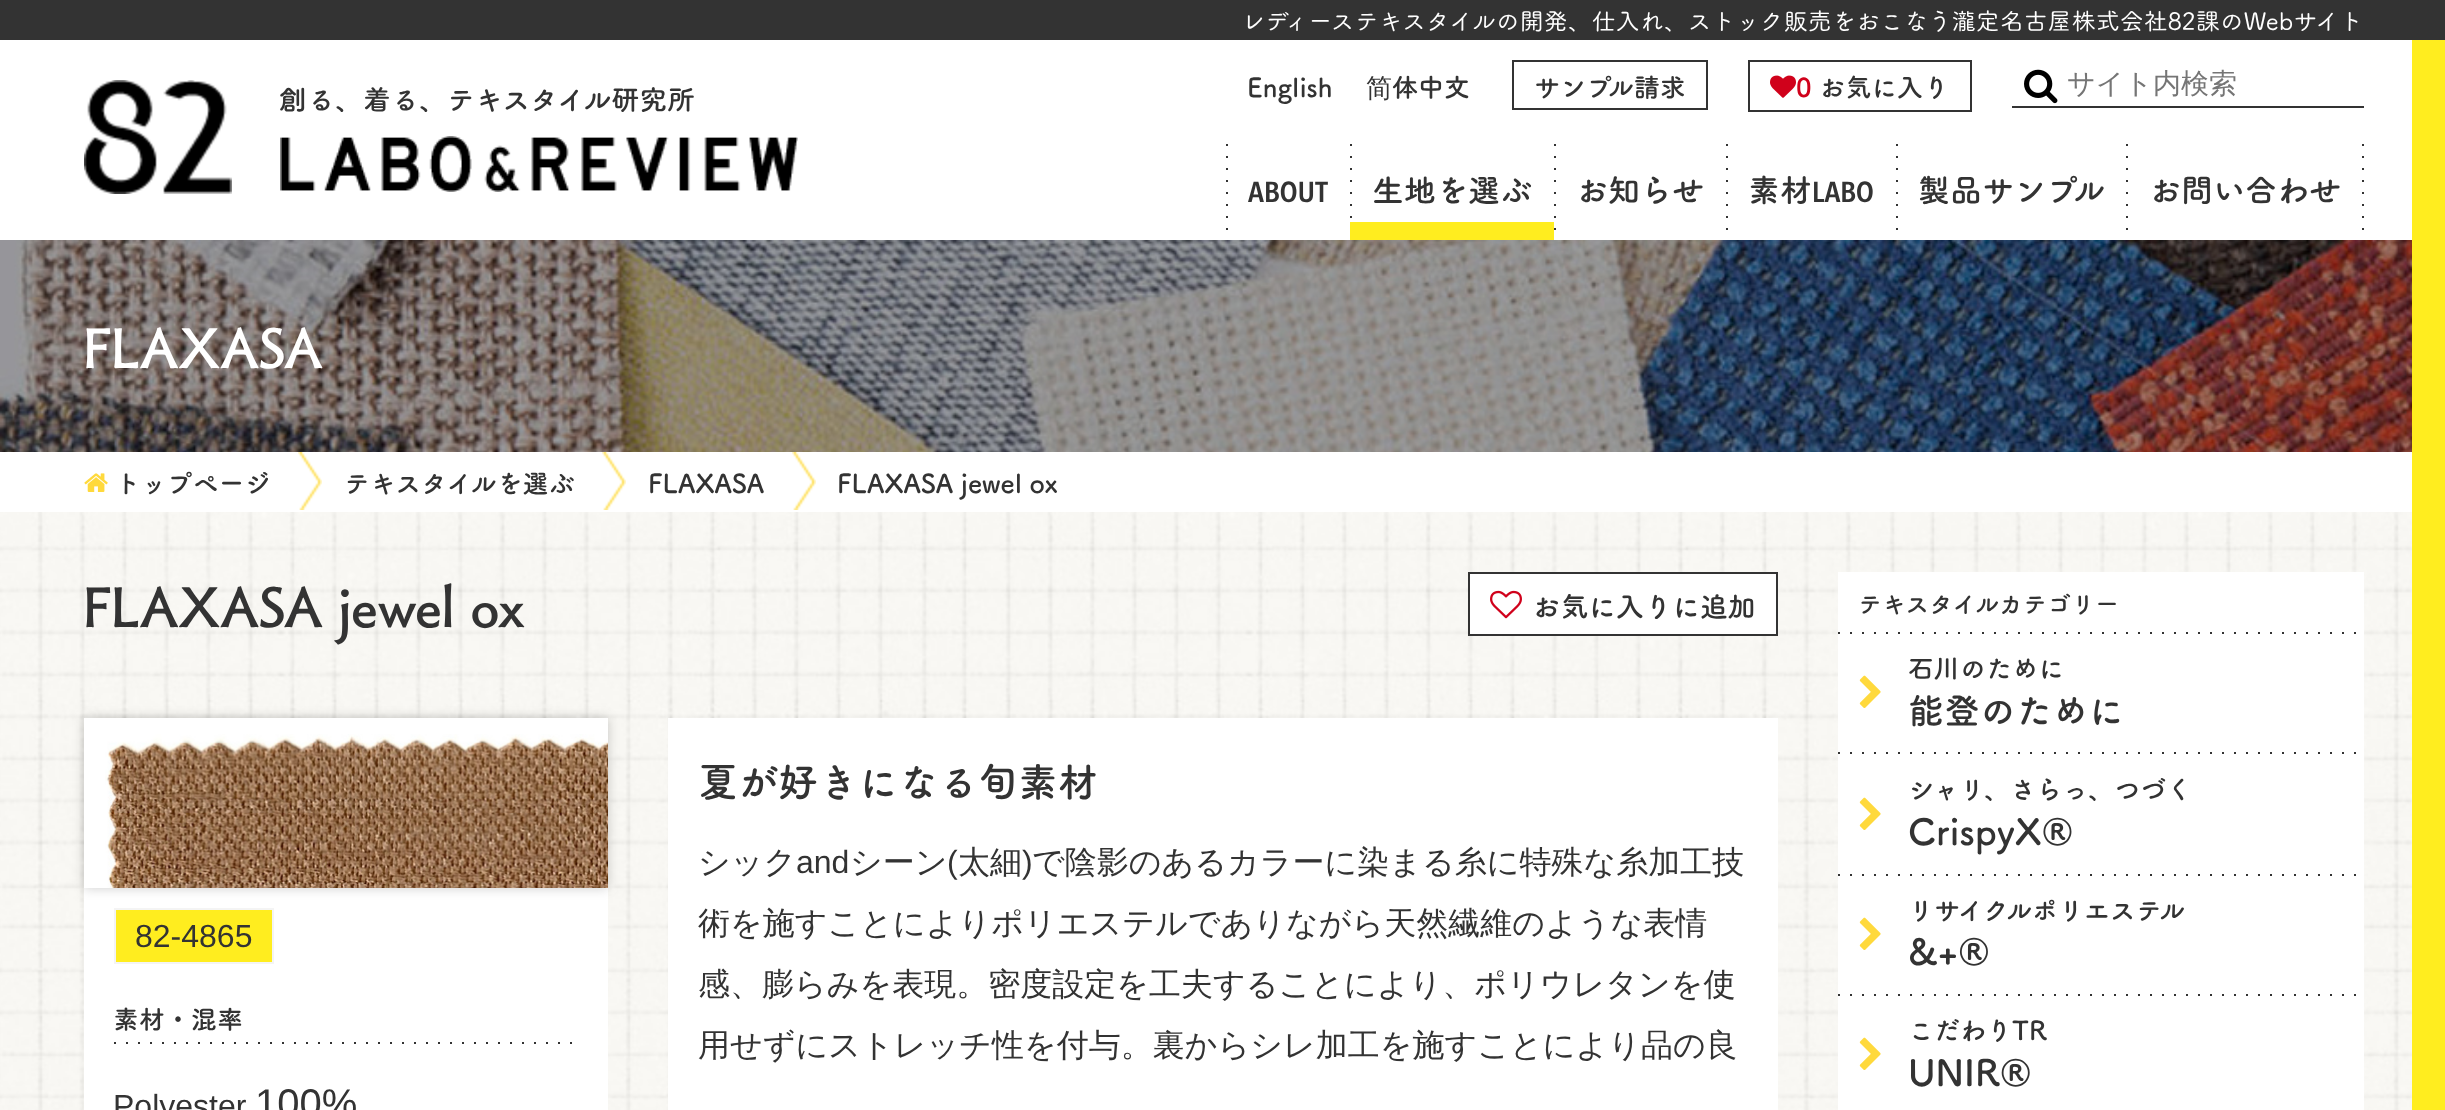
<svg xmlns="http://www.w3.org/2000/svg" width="2445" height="1110">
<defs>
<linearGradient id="g1" gradientUnits="userSpaceOnUse" x1="2363" y1="144" x2="2363" y2="156"><stop offset="0" stop-color="#333"/><stop offset="0.17" stop-color="#333"/><stop offset="0.17" stop-color="#fff"/><stop offset="1" stop-color="#fff"/></linearGradient>
<linearGradient id="g2" gradientUnits="userSpaceOnUse" x1="2363" y1="156" x2="2363" y2="168"><stop offset="0" stop-color="#333"/><stop offset="0.17" stop-color="#333"/><stop offset="0.17" stop-color="#fff"/><stop offset="1" stop-color="#fff"/></linearGradient>
<linearGradient id="g3" gradientUnits="userSpaceOnUse" x1="2363" y1="168" x2="2363" y2="180"><stop offset="0" stop-color="#333"/><stop offset="0.17" stop-color="#333"/><stop offset="0.17" stop-color="#fff"/><stop offset="1" stop-color="#fff"/></linearGradient>
<linearGradient id="g4" gradientUnits="userSpaceOnUse" x1="2363" y1="180" x2="2363" y2="192"><stop offset="0" stop-color="#333"/><stop offset="0.17" stop-color="#333"/><stop offset="0.17" stop-color="#fff"/><stop offset="1" stop-color="#fff"/></linearGradient>
<linearGradient id="g5" gradientUnits="userSpaceOnUse" x1="2363" y1="192" x2="2363" y2="204"><stop offset="0" stop-color="#333"/><stop offset="0.17" stop-color="#333"/><stop offset="0.17" stop-color="#fff"/><stop offset="1" stop-color="#fff"/></linearGradient>
<linearGradient id="g6" gradientUnits="userSpaceOnUse" x1="2363" y1="204" x2="2363" y2="216"><stop offset="0" stop-color="#333"/><stop offset="0.17" stop-color="#333"/><stop offset="0.17" stop-color="#fff"/><stop offset="1" stop-color="#fff"/></linearGradient>
<linearGradient id="g7" gradientUnits="userSpaceOnUse" x1="2363" y1="216" x2="2363" y2="228"><stop offset="0" stop-color="#333"/><stop offset="0.17" stop-color="#333"/><stop offset="0.17" stop-color="#fff"/><stop offset="1" stop-color="#fff"/></linearGradient>
<linearGradient id="g8" gradientUnits="userSpaceOnUse" x1="2363" y1="228" x2="2363" y2="240"><stop offset="0" stop-color="#333"/><stop offset="0.17" stop-color="#333"/><stop offset="0.17" stop-color="#fff"/><stop offset="1" stop-color="#fff"/></linearGradient>
<linearGradient id="g9" gradientUnits="userSpaceOnUse" x1="1227" y1="144" x2="1227" y2="156"><stop offset="0" stop-color="#333"/><stop offset="0.17" stop-color="#333"/><stop offset="0.17" stop-color="#fff"/><stop offset="1" stop-color="#fff"/></linearGradient>
<linearGradient id="g10" gradientUnits="userSpaceOnUse" x1="1227" y1="156" x2="1227" y2="168"><stop offset="0" stop-color="#333"/><stop offset="0.17" stop-color="#333"/><stop offset="0.17" stop-color="#fff"/><stop offset="1" stop-color="#fff"/></linearGradient>
<linearGradient id="g11" gradientUnits="userSpaceOnUse" x1="1227" y1="168" x2="1227" y2="180"><stop offset="0" stop-color="#333"/><stop offset="0.17" stop-color="#333"/><stop offset="0.17" stop-color="#fff"/><stop offset="1" stop-color="#fff"/></linearGradient>
<linearGradient id="g12" gradientUnits="userSpaceOnUse" x1="1227" y1="180" x2="1227" y2="192"><stop offset="0" stop-color="#333"/><stop offset="0.17" stop-color="#333"/><stop offset="0.17" stop-color="#fff"/><stop offset="1" stop-color="#fff"/></linearGradient>
<linearGradient id="g13" gradientUnits="userSpaceOnUse" x1="1227" y1="192" x2="1227" y2="204"><stop offset="0" stop-color="#333"/><stop offset="0.17" stop-color="#333"/><stop offset="0.17" stop-color="#fff"/><stop offset="1" stop-color="#fff"/></linearGradient>
<linearGradient id="g14" gradientUnits="userSpaceOnUse" x1="1227" y1="204" x2="1227" y2="216"><stop offset="0" stop-color="#333"/><stop offset="0.17" stop-color="#333"/><stop offset="0.17" stop-color="#fff"/><stop offset="1" stop-color="#fff"/></linearGradient>
<linearGradient id="g15" gradientUnits="userSpaceOnUse" x1="1227" y1="216" x2="1227" y2="228"><stop offset="0" stop-color="#333"/><stop offset="0.17" stop-color="#333"/><stop offset="0.17" stop-color="#fff"/><stop offset="1" stop-color="#fff"/></linearGradient>
<linearGradient id="g16" gradientUnits="userSpaceOnUse" x1="1227" y1="228" x2="1227" y2="240"><stop offset="0" stop-color="#333"/><stop offset="0.17" stop-color="#333"/><stop offset="0.17" stop-color="#fff"/><stop offset="1" stop-color="#fff"/></linearGradient>
<linearGradient id="g17" gradientUnits="userSpaceOnUse" x1="1351" y1="144" x2="1351" y2="156"><stop offset="0" stop-color="#333"/><stop offset="0.17" stop-color="#333"/><stop offset="0.17" stop-color="#fff"/><stop offset="1" stop-color="#fff"/></linearGradient>
<linearGradient id="g18" gradientUnits="userSpaceOnUse" x1="1351" y1="156" x2="1351" y2="168"><stop offset="0" stop-color="#333"/><stop offset="0.17" stop-color="#333"/><stop offset="0.17" stop-color="#fff"/><stop offset="1" stop-color="#fff"/></linearGradient>
<linearGradient id="g19" gradientUnits="userSpaceOnUse" x1="1351" y1="168" x2="1351" y2="180"><stop offset="0" stop-color="#333"/><stop offset="0.17" stop-color="#333"/><stop offset="0.17" stop-color="#fff"/><stop offset="1" stop-color="#fff"/></linearGradient>
<linearGradient id="g20" gradientUnits="userSpaceOnUse" x1="1351" y1="180" x2="1351" y2="192"><stop offset="0" stop-color="#333"/><stop offset="0.17" stop-color="#333"/><stop offset="0.17" stop-color="#fff"/><stop offset="1" stop-color="#fff"/></linearGradient>
<linearGradient id="g21" gradientUnits="userSpaceOnUse" x1="1351" y1="192" x2="1351" y2="204"><stop offset="0" stop-color="#333"/><stop offset="0.17" stop-color="#333"/><stop offset="0.17" stop-color="#fff"/><stop offset="1" stop-color="#fff"/></linearGradient>
<linearGradient id="g22" gradientUnits="userSpaceOnUse" x1="1351" y1="204" x2="1351" y2="216"><stop offset="0" stop-color="#333"/><stop offset="0.17" stop-color="#333"/><stop offset="0.17" stop-color="#fff"/><stop offset="1" stop-color="#fff"/></linearGradient>
<linearGradient id="g23" gradientUnits="userSpaceOnUse" x1="1351" y1="216" x2="1351" y2="228"><stop offset="0" stop-color="#333"/><stop offset="0.17" stop-color="#333"/><stop offset="0.17" stop-color="#fff"/><stop offset="1" stop-color="#fff"/></linearGradient>
<linearGradient id="g24" gradientUnits="userSpaceOnUse" x1="1555" y1="144" x2="1555" y2="156"><stop offset="0" stop-color="#333"/><stop offset="0.17" stop-color="#333"/><stop offset="0.17" stop-color="#fff"/><stop offset="1" stop-color="#fff"/></linearGradient>
<linearGradient id="g25" gradientUnits="userSpaceOnUse" x1="1555" y1="156" x2="1555" y2="168"><stop offset="0" stop-color="#333"/><stop offset="0.17" stop-color="#333"/><stop offset="0.17" stop-color="#fff"/><stop offset="1" stop-color="#fff"/></linearGradient>
<linearGradient id="g26" gradientUnits="userSpaceOnUse" x1="1555" y1="168" x2="1555" y2="180"><stop offset="0" stop-color="#333"/><stop offset="0.17" stop-color="#333"/><stop offset="0.17" stop-color="#fff"/><stop offset="1" stop-color="#fff"/></linearGradient>
<linearGradient id="g27" gradientUnits="userSpaceOnUse" x1="1555" y1="180" x2="1555" y2="192"><stop offset="0" stop-color="#333"/><stop offset="0.17" stop-color="#333"/><stop offset="0.17" stop-color="#fff"/><stop offset="1" stop-color="#fff"/></linearGradient>
<linearGradient id="g28" gradientUnits="userSpaceOnUse" x1="1555" y1="192" x2="1555" y2="204"><stop offset="0" stop-color="#333"/><stop offset="0.17" stop-color="#333"/><stop offset="0.17" stop-color="#fff"/><stop offset="1" stop-color="#fff"/></linearGradient>
<linearGradient id="g29" gradientUnits="userSpaceOnUse" x1="1555" y1="204" x2="1555" y2="216"><stop offset="0" stop-color="#333"/><stop offset="0.17" stop-color="#333"/><stop offset="0.17" stop-color="#fff"/><stop offset="1" stop-color="#fff"/></linearGradient>
<linearGradient id="g30" gradientUnits="userSpaceOnUse" x1="1555" y1="216" x2="1555" y2="228"><stop offset="0" stop-color="#333"/><stop offset="0.17" stop-color="#333"/><stop offset="0.17" stop-color="#fff"/><stop offset="1" stop-color="#fff"/></linearGradient>
<linearGradient id="g31" gradientUnits="userSpaceOnUse" x1="1555" y1="228" x2="1555" y2="240"><stop offset="0" stop-color="#333"/><stop offset="0.17" stop-color="#333"/><stop offset="0.17" stop-color="#fff"/><stop offset="1" stop-color="#fff"/></linearGradient>
<linearGradient id="g32" gradientUnits="userSpaceOnUse" x1="1727" y1="144" x2="1727" y2="156"><stop offset="0" stop-color="#333"/><stop offset="0.17" stop-color="#333"/><stop offset="0.17" stop-color="#fff"/><stop offset="1" stop-color="#fff"/></linearGradient>
<linearGradient id="g33" gradientUnits="userSpaceOnUse" x1="1727" y1="156" x2="1727" y2="168"><stop offset="0" stop-color="#333"/><stop offset="0.17" stop-color="#333"/><stop offset="0.17" stop-color="#fff"/><stop offset="1" stop-color="#fff"/></linearGradient>
<linearGradient id="g34" gradientUnits="userSpaceOnUse" x1="1727" y1="168" x2="1727" y2="180"><stop offset="0" stop-color="#333"/><stop offset="0.17" stop-color="#333"/><stop offset="0.17" stop-color="#fff"/><stop offset="1" stop-color="#fff"/></linearGradient>
<linearGradient id="g35" gradientUnits="userSpaceOnUse" x1="1727" y1="180" x2="1727" y2="192"><stop offset="0" stop-color="#333"/><stop offset="0.17" stop-color="#333"/><stop offset="0.17" stop-color="#fff"/><stop offset="1" stop-color="#fff"/></linearGradient>
<linearGradient id="g36" gradientUnits="userSpaceOnUse" x1="1727" y1="192" x2="1727" y2="204"><stop offset="0" stop-color="#333"/><stop offset="0.17" stop-color="#333"/><stop offset="0.17" stop-color="#fff"/><stop offset="1" stop-color="#fff"/></linearGradient>
<linearGradient id="g37" gradientUnits="userSpaceOnUse" x1="1727" y1="204" x2="1727" y2="216"><stop offset="0" stop-color="#333"/><stop offset="0.17" stop-color="#333"/><stop offset="0.17" stop-color="#fff"/><stop offset="1" stop-color="#fff"/></linearGradient>
<linearGradient id="g38" gradientUnits="userSpaceOnUse" x1="1727" y1="216" x2="1727" y2="228"><stop offset="0" stop-color="#333"/><stop offset="0.17" stop-color="#333"/><stop offset="0.17" stop-color="#fff"/><stop offset="1" stop-color="#fff"/></linearGradient>
<linearGradient id="g39" gradientUnits="userSpaceOnUse" x1="1727" y1="228" x2="1727" y2="240"><stop offset="0" stop-color="#333"/><stop offset="0.17" stop-color="#333"/><stop offset="0.17" stop-color="#fff"/><stop offset="1" stop-color="#fff"/></linearGradient>
<linearGradient id="g40" gradientUnits="userSpaceOnUse" x1="1897" y1="144" x2="1897" y2="156"><stop offset="0" stop-color="#333"/><stop offset="0.17" stop-color="#333"/><stop offset="0.17" stop-color="#fff"/><stop offset="1" stop-color="#fff"/></linearGradient>
<linearGradient id="g41" gradientUnits="userSpaceOnUse" x1="1897" y1="156" x2="1897" y2="168"><stop offset="0" stop-color="#333"/><stop offset="0.17" stop-color="#333"/><stop offset="0.17" stop-color="#fff"/><stop offset="1" stop-color="#fff"/></linearGradient>
<linearGradient id="g42" gradientUnits="userSpaceOnUse" x1="1897" y1="168" x2="1897" y2="180"><stop offset="0" stop-color="#333"/><stop offset="0.17" stop-color="#333"/><stop offset="0.17" stop-color="#fff"/><stop offset="1" stop-color="#fff"/></linearGradient>
<linearGradient id="g43" gradientUnits="userSpaceOnUse" x1="1897" y1="180" x2="1897" y2="192"><stop offset="0" stop-color="#333"/><stop offset="0.17" stop-color="#333"/><stop offset="0.17" stop-color="#fff"/><stop offset="1" stop-color="#fff"/></linearGradient>
<linearGradient id="g44" gradientUnits="userSpaceOnUse" x1="1897" y1="192" x2="1897" y2="204"><stop offset="0" stop-color="#333"/><stop offset="0.17" stop-color="#333"/><stop offset="0.17" stop-color="#fff"/><stop offset="1" stop-color="#fff"/></linearGradient>
<linearGradient id="g45" gradientUnits="userSpaceOnUse" x1="1897" y1="204" x2="1897" y2="216"><stop offset="0" stop-color="#333"/><stop offset="0.17" stop-color="#333"/><stop offset="0.17" stop-color="#fff"/><stop offset="1" stop-color="#fff"/></linearGradient>
<linearGradient id="g46" gradientUnits="userSpaceOnUse" x1="1897" y1="216" x2="1897" y2="228"><stop offset="0" stop-color="#333"/><stop offset="0.17" stop-color="#333"/><stop offset="0.17" stop-color="#fff"/><stop offset="1" stop-color="#fff"/></linearGradient>
<linearGradient id="g47" gradientUnits="userSpaceOnUse" x1="1897" y1="228" x2="1897" y2="240"><stop offset="0" stop-color="#333"/><stop offset="0.17" stop-color="#333"/><stop offset="0.17" stop-color="#fff"/><stop offset="1" stop-color="#fff"/></linearGradient>
<linearGradient id="g48" gradientUnits="userSpaceOnUse" x1="2127" y1="144" x2="2127" y2="156"><stop offset="0" stop-color="#333"/><stop offset="0.17" stop-color="#333"/><stop offset="0.17" stop-color="#fff"/><stop offset="1" stop-color="#fff"/></linearGradient>
<linearGradient id="g49" gradientUnits="userSpaceOnUse" x1="2127" y1="156" x2="2127" y2="168"><stop offset="0" stop-color="#333"/><stop offset="0.17" stop-color="#333"/><stop offset="0.17" stop-color="#fff"/><stop offset="1" stop-color="#fff"/></linearGradient>
<linearGradient id="g50" gradientUnits="userSpaceOnUse" x1="2127" y1="168" x2="2127" y2="180"><stop offset="0" stop-color="#333"/><stop offset="0.17" stop-color="#333"/><stop offset="0.17" stop-color="#fff"/><stop offset="1" stop-color="#fff"/></linearGradient>
<linearGradient id="g51" gradientUnits="userSpaceOnUse" x1="2127" y1="180" x2="2127" y2="192"><stop offset="0" stop-color="#333"/><stop offset="0.17" stop-color="#333"/><stop offset="0.17" stop-color="#fff"/><stop offset="1" stop-color="#fff"/></linearGradient>
<linearGradient id="g52" gradientUnits="userSpaceOnUse" x1="2127" y1="192" x2="2127" y2="204"><stop offset="0" stop-color="#333"/><stop offset="0.17" stop-color="#333"/><stop offset="0.17" stop-color="#fff"/><stop offset="1" stop-color="#fff"/></linearGradient>
<linearGradient id="g53" gradientUnits="userSpaceOnUse" x1="2127" y1="204" x2="2127" y2="216"><stop offset="0" stop-color="#333"/><stop offset="0.17" stop-color="#333"/><stop offset="0.17" stop-color="#fff"/><stop offset="1" stop-color="#fff"/></linearGradient>
<linearGradient id="g54" gradientUnits="userSpaceOnUse" x1="2127" y1="216" x2="2127" y2="228"><stop offset="0" stop-color="#333"/><stop offset="0.17" stop-color="#333"/><stop offset="0.17" stop-color="#fff"/><stop offset="1" stop-color="#fff"/></linearGradient>
<linearGradient id="g55" gradientUnits="userSpaceOnUse" x1="2127" y1="228" x2="2127" y2="240"><stop offset="0" stop-color="#333"/><stop offset="0.17" stop-color="#333"/><stop offset="0.17" stop-color="#fff"/><stop offset="1" stop-color="#fff"/></linearGradient>
<clipPath id="clip1"><path d="M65 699h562v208h-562zm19 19h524v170h-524z" clip-rule="evenodd"/></clipPath>
</defs>
<rect width="100%" height="100%" fill="#fff"/>
<image x="0" y="512" width="2412" height="598" href="media/1.png"/>
<image x="0" y="240" width="2412" height="212" href="media/2.png"/>
<text x="83" y="368" style="font-family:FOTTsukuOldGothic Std;font-size:56px;font-weight:bold;fill:#fff">FLAXASA</text>
<rect width="2445" height="40" fill="#333"/>
<text x="1241" y="30" style="font-family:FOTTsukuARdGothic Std;font-size:24px;font-weight:500;fill:#fff">レディーステキスタイルの開発、仕入れ、ストック販売をおこなう瀧定名古屋株式会社82課のWebサイト</text>
<image x="84" y="80" width="148" height="114" href="media/3.png"/>
<text x="279" y="110" style="font-family:FOTTsukuARdGothic Std;font-size:28px;font-weight:bold;fill:#333">創る、着る、テキスタイル研究所</text>
<image x="280" y="136" width="518" height="56" href="media/4.png"/>
<text x="1247" y="97" style="font-family:FOTTsukuARdGothic Std;font-size:26px;font-weight:bold;fill:#333">English</text>
<text x="1366" y="97" style="font-family:WenQuanYi Zen Hei;font-size:26px;font-weight:500;fill:#333">简</text>
<text x="1392" y="97" style="font-family:FOTTsukuARdGothic Std;font-size:26px;font-weight:bold;fill:#333">体中文</text>
<rect x="1513" y="61" width="194" height="48" fill="none" stroke="#333" stroke-width="2"/>
<text x="1534" y="97" style="font-family:FOTTsukuARdGothic Std;font-size:26px;font-weight:bold;fill:#333">サンプル請求</text>
<rect x="1749" y="61" width="222" height="50" fill="none" stroke="#333" stroke-width="2"/>
<image x="1770" y="75" width="26" height="23" href="media/5.png"/>
<text x="1796" y="97" style="font-family:FOTTsukuARdGothic Std;font-size:26px;font-weight:bold;fill:#d0011b">0</text>
<text x="1819" y="97" style="font-family:FOTTsukuARdGothic Std;font-size:26px;font-weight:bold;fill:#333">お気に入り</text>
<rect x="2012" y="106" width="352" height="2" fill="#333"/>
<image x="2024" y="69" width="34" height="35" href="media/6.png"/>
<text x="2067" y="93" style="font-family:WenQuanYi Zen Hei;font-size:28px;font-weight:500;fill:#757575">サイト内検索</text>
<rect x="2362" y="144" width="2" height="2" fill="url(#g1)"/>
<rect x="2362" y="156" width="2" height="2" fill="url(#g2)"/>
<rect x="2362" y="168" width="2" height="2" fill="url(#g3)"/>
<rect x="2362" y="180" width="2" height="2" fill="url(#g4)"/>
<rect x="2362" y="192" width="2" height="2" fill="url(#g5)"/>
<rect x="2362" y="204" width="2" height="2" fill="url(#g6)"/>
<rect x="2362" y="216" width="2" height="2" fill="url(#g7)"/>
<rect x="2362" y="228" width="2" height="2" fill="url(#g8)"/>
<rect x="1226" y="144" width="2" height="2" fill="url(#g9)"/>
<rect x="1226" y="156" width="2" height="2" fill="url(#g10)"/>
<rect x="1226" y="168" width="2" height="2" fill="url(#g11)"/>
<rect x="1226" y="180" width="2" height="2" fill="url(#g12)"/>
<rect x="1226" y="192" width="2" height="2" fill="url(#g13)"/>
<rect x="1226" y="204" width="2" height="2" fill="url(#g14)"/>
<rect x="1226" y="216" width="2" height="2" fill="url(#g15)"/>
<rect x="1226" y="228" width="2" height="2" fill="url(#g16)"/>
<text x="1248" y="202" style="font-family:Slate;font-size:32px;font-weight:500;fill:#333">ABOUT</text>
<rect x="1350" y="144" width="2" height="2" fill="url(#g17)"/>
<rect x="1350" y="156" width="2" height="2" fill="url(#g18)"/>
<rect x="1350" y="168" width="2" height="2" fill="url(#g19)"/>
<rect x="1350" y="180" width="2" height="2" fill="url(#g20)"/>
<rect x="1350" y="192" width="2" height="2" fill="url(#g21)"/>
<rect x="1350" y="204" width="2" height="2" fill="url(#g22)"/>
<rect x="1350" y="216" width="2" height="2" fill="url(#g23)"/>
<text x="1372" y="202" style="font-family:FOTTsukuARdGothic Std;font-size:32px;font-weight:bold;fill:#333">生地を選ぶ</text>
<rect x="1350" y="222" width="204" height="18" fill="#ffed1f"/>
<rect x="1554" y="144" width="2" height="2" fill="url(#g24)"/>
<rect x="1554" y="156" width="2" height="2" fill="url(#g25)"/>
<rect x="1554" y="168" width="2" height="2" fill="url(#g26)"/>
<rect x="1554" y="180" width="2" height="2" fill="url(#g27)"/>
<rect x="1554" y="192" width="2" height="2" fill="url(#g28)"/>
<rect x="1554" y="204" width="2" height="2" fill="url(#g29)"/>
<rect x="1554" y="216" width="2" height="2" fill="url(#g30)"/>
<rect x="1554" y="228" width="2" height="2" fill="url(#g31)"/>
<text x="1576" y="202" style="font-family:FOTTsukuARdGothic Std;font-size:32px;font-weight:bold;fill:#333">お知らせ</text>
<rect x="1726" y="144" width="2" height="2" fill="url(#g32)"/>
<rect x="1726" y="156" width="2" height="2" fill="url(#g33)"/>
<rect x="1726" y="168" width="2" height="2" fill="url(#g34)"/>
<rect x="1726" y="180" width="2" height="2" fill="url(#g35)"/>
<rect x="1726" y="192" width="2" height="2" fill="url(#g36)"/>
<rect x="1726" y="204" width="2" height="2" fill="url(#g37)"/>
<rect x="1726" y="216" width="2" height="2" fill="url(#g38)"/>
<rect x="1726" y="228" width="2" height="2" fill="url(#g39)"/>
<text x="1748" y="202" style="font-family:FOTTsukuARdGothic Std;font-size:32px;font-weight:bold;fill:#333">素材</text>
<text x="1812" y="202" style="font-family:Slate;font-size:32px;font-weight:500;fill:#333">LABO</text>
<rect x="1896" y="144" width="2" height="2" fill="url(#g40)"/>
<rect x="1896" y="156" width="2" height="2" fill="url(#g41)"/>
<rect x="1896" y="168" width="2" height="2" fill="url(#g42)"/>
<rect x="1896" y="180" width="2" height="2" fill="url(#g43)"/>
<rect x="1896" y="192" width="2" height="2" fill="url(#g44)"/>
<rect x="1896" y="204" width="2" height="2" fill="url(#g45)"/>
<rect x="1896" y="216" width="2" height="2" fill="url(#g46)"/>
<rect x="1896" y="228" width="2" height="2" fill="url(#g47)"/>
<text x="1918" y="202" style="font-family:FOTTsukuARdGothic Std;font-size:32px;font-weight:bold;fill:#333">製品サンプル</text>
<rect x="2126" y="144" width="2" height="2" fill="url(#g48)"/>
<rect x="2126" y="156" width="2" height="2" fill="url(#g49)"/>
<rect x="2126" y="168" width="2" height="2" fill="url(#g50)"/>
<rect x="2126" y="180" width="2" height="2" fill="url(#g51)"/>
<rect x="2126" y="192" width="2" height="2" fill="url(#g52)"/>
<rect x="2126" y="204" width="2" height="2" fill="url(#g53)"/>
<rect x="2126" y="216" width="2" height="2" fill="url(#g54)"/>
<rect x="2126" y="228" width="2" height="2" fill="url(#g55)"/>
<text x="2149" y="202" style="font-family:FOTTsukuARdGothic Std;font-size:32px;font-weight:bold;fill:#333">お問い合わせ</text>
<rect x="2412" y="40" width="33" height="1070" fill="#ffed1f"/>
<image x="84" y="473" width="24" height="19" href="media/7.png"/>
<text x="115" y="493" style="font-family:FOTTsukuARdGothic Std;font-size:26px;font-weight:bold;fill:#333">トップページ</text>
<image x="298" y="452" width="24" height="58" href="media/8.png"/>
<text x="344" y="493" style="font-family:FOTTsukuARdGothic Std;font-size:26px;font-weight:bold;fill:#333">テキスタイルを選ぶ</text>
<image x="602" y="452" width="24" height="58" href="media/8.png"/>
<text x="648" y="493" style="font-family:FOTTsukuARdGothic Std;font-size:26px;font-weight:bold;fill:#333">FLAXASA</text>
<image x="792" y="452" width="24" height="58" href="media/8.png"/>
<text x="837" y="493" style="font-family:FOTTsukuARdGothic Std;font-size:26px;font-weight:bold;fill:#333">FLAXASA jewel ox</text>
<text x="83" y="627" style="font-family:FOTTsukuOldGothic Std;font-size:56px;font-weight:bold;fill:#333">FLAXASA jewel ox</text>
<rect x="1469" y="573" width="308" height="62" fill="#fff" stroke="#333" stroke-width="2"/>
<image x="1490" y="590" width="32" height="29" href="media/9.png"/>
<text x="1532" y="617" style="font-family:FOTTsukuARdGothic Std;font-size:28px;font-weight:bold;fill:#333">お気に入りに追加</text>
<rect x="84" y="718" width="524" height="392" fill="#fff"/>
<g clip-path="url(#clip1)">
<rect x="84" y="718" width="524" height="170" fill="#00000033" filter="blur(6px)"/>
</g>
<image x="105" y="734" width="503" height="154" href="media/10.png"/>
<rect x="115" y="909" width="158" height="54" fill="#ffed1f" stroke="#f4f4f4" stroke-width="2"/>
<text x="135" y="947" style="font-family:Liberation Sans;font-size:32px;fill:#333">82-4865</text>
<image x="114" y="1042" width="458" height="2" href="media/11.png"/>
<text x="113" y="1029" style="font-family:FOTTsukuARdGothic Std;font-size:26px;font-weight:bold;fill:#333">素材・混率</text>
<text x="113" y="1117" style="font-family:Liberation Sans;font-size:32px;fill:#333">Polyester</text>
<text x="255" y="1117" style="font-family:Liberation Sans;font-size:40px;fill:#333">100%</text>
<rect x="668" y="718" width="1110" height="392" fill="#fff"/>
<text x="698" y="797" style="font-family:FOTTsukuARdGothic Std;font-size:40px;font-weight:bold;fill:#333">夏が好きになる旬素材</text>
<text x="698" y="873" style="font-family:WenQuanYi Zen Hei;font-size:32px;font-weight:500;fill:#333">シック</text>
<text x="796" y="873" style="font-family:Liberation Sans;font-size:32px;fill:#333">and</text>
<text x="850" y="873" style="font-family:WenQuanYi Zen Hei;font-size:32px;font-weight:500;fill:#333">シーン</text>
<text x="947" y="873" style="font-family:Liberation Sans;font-size:32px;fill:#333">(</text>
<text x="958" y="873" style="font-family:WenQuanYi Zen Hei;font-size:32px;font-weight:500;fill:#333">太細</text>
<text x="1022" y="873" style="font-family:Liberation Sans;font-size:32px;fill:#333">)</text>
<text x="1032" y="873" style="font-family:WenQuanYi Zen Hei;font-size:32px;font-weight:500;fill:#333">で陰影のあるカラーに染まる糸に特殊な糸加工技</text>
<text x="698" y="934" style="font-family:WenQuanYi Zen Hei;font-size:32px;font-weight:500;fill:#333">術を施すことによりポリエステルでありながら天然繊維のような表情</text>
<text x="698" y="995" style="font-family:WenQuanYi Zen Hei;font-size:32px;font-weight:500;fill:#333">感、膨らみを表現。密度設定を工夫することにより、ポリウレタンを使</text>
<text x="698" y="1056" style="font-family:WenQuanYi Zen Hei;font-size:32px;font-weight:500;fill:#333">用せずにストレッチ性を付与。裏からシレ加工を施すことにより品の良</text>
<rect x="1838" y="572" width="526" height="538" fill="#fff"/>
<text x="1858" y="613" style="font-family:FOTTsukuARdGothic Std;font-size:24px;font-weight:bold;fill:#333">テキスタイルカテゴリー</text>
<image x="1838" y="632" width="518" height="2" href="media/12.png"/>
<text x="1908" y="678" style="font-family:FOTTsukuARdGothic Std;font-size:26px;font-weight:bold;fill:#333">石川のために</text>
<image x="1859" y="675" width="22" height="33" href="media/13.png"/>
<text x="1908" y="724" style="font-family:FOTTsukuARdGothic Std;font-size:36px;font-weight:bold;fill:#333">能登のために</text>
<image x="1838" y="752" width="518" height="2" href="media/12.png"/>
<text x="1908" y="799" style="font-family:FOTTsukuARdGothic Std;font-size:26px;font-weight:bold;fill:#333">シャリ、さらっ、つづく</text>
<image x="1859" y="797" width="22" height="33" href="media/13.png"/>
<text x="1908" y="845" style="font-family:FOTTsukuARdGothic Std;font-size:36px;font-weight:bold;fill:#333">CrispyX®</text>
<image x="1838" y="874" width="518" height="2" href="media/12.png"/>
<text x="1908" y="920" style="font-family:FOTTsukuARdGothic Std;font-size:26px;font-weight:bold;fill:#333">リサイクルポリエステル</text>
<image x="1859" y="917" width="22" height="33" href="media/13.png"/>
<text x="1908" y="965" style="font-family:FOTTsukuARdGothic Std;font-size:36px;font-weight:bold;fill:#333">&amp;+®</text>
<image x="1838" y="994" width="518" height="2" href="media/12.png"/>
<text x="1908" y="1040" style="font-family:FOTTsukuARdGothic Std;font-size:26px;font-weight:bold;fill:#333">こだわりTR</text>
<image x="1859" y="1037" width="22" height="33" href="media/13.png"/>
<text x="1908" y="1086" style="font-family:FOTTsukuARdGothic Std;font-size:36px;font-weight:bold;fill:#333">UNIR®</text>
</svg>
